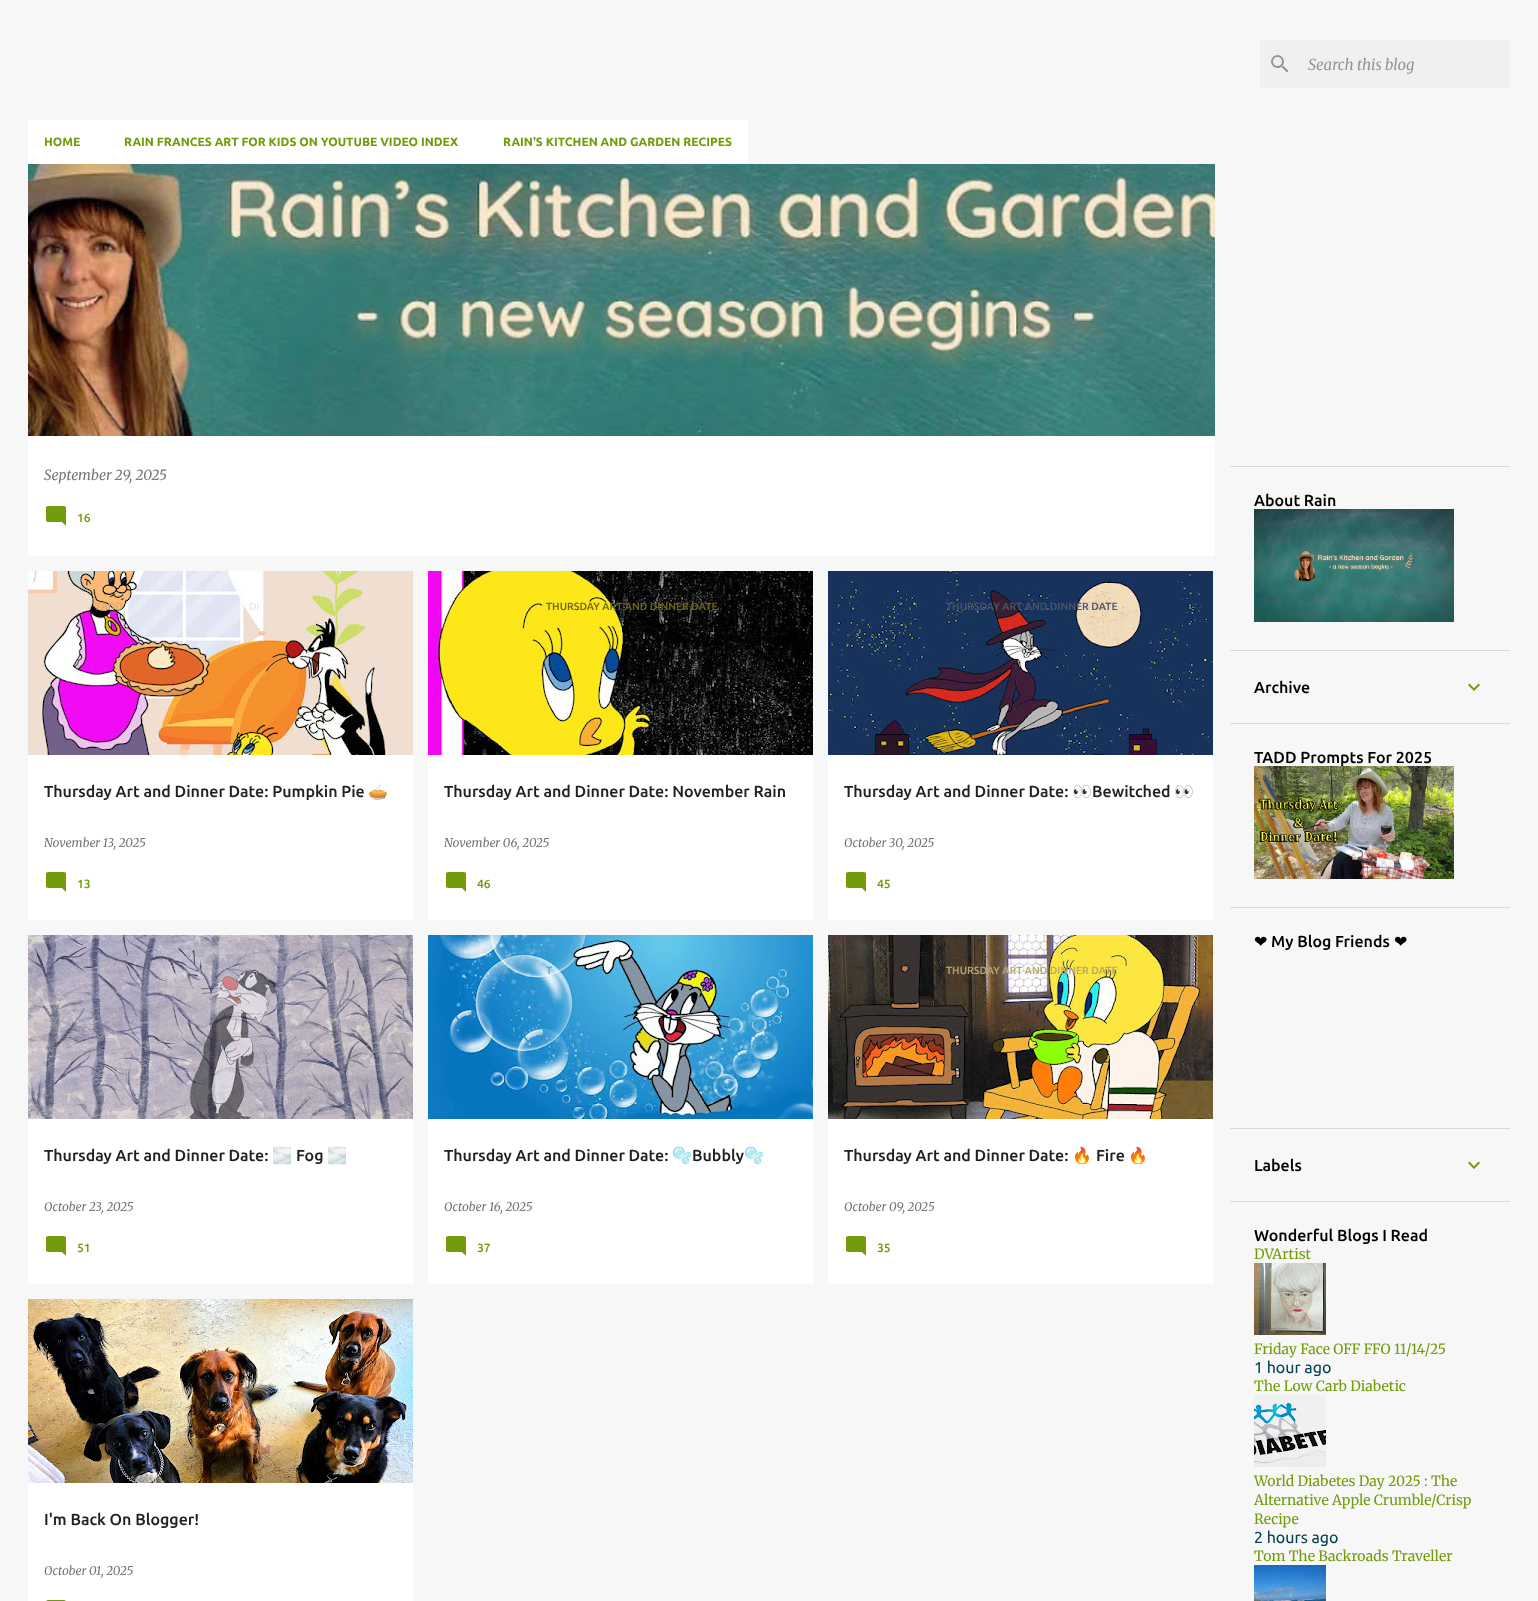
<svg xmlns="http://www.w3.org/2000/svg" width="1538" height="1601">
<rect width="100%" height="100%" fill="#f7f7f7"/>
<rect x="1260" y="40" width="250" height="48" fill="#f0f0f0"/>
<image x="1271" y="55" width="18" height="18" href="media/1.png"/>
<text x="1308" y="70" style="font-family:Merriweather;font-size:15px;font-style:italic;fill:#959595">Search this blog</text>
<rect x="28" y="120" width="720" height="44" fill="#fff"/>
<text x="44" y="146" style="font-family:Ubuntu;font-size:12px;font-weight:bold;fill:#729c0b">HOME</text>
<text x="124" y="146" style="font-family:Ubuntu;font-size:12px;font-weight:bold;fill:#729c0b">RAIN FRANCES ART FOR KIDS ON YOUTUBE VIDEO INDEX</text>
<text x="503" y="146" style="font-family:Ubuntu;font-size:12px;font-weight:bold;fill:#729c0b">RAIN'S KITCHEN AND GARDEN RECIPES</text>
<rect x="28" y="436" width="1187" height="120" fill="#fff"/>
<image x="28" y="164" width="1187" height="272" href="media/2.png"/>
<text x="44" y="480" style="font-family:Merriweather;font-size:14px;font-style:italic;fill:#757575">September 29, 2025</text>
<image x="46" y="506" width="20" height="20" href="media/3.png"/>
<text x="77" y="522" style="font-family:Ubuntu;font-size:12px;font-weight:500;fill:#729c0b">16</text>
<rect x="28" y="755" width="385" height="165" fill="#fff"/>
<image x="28" y="571" width="385" height="184" href="media/4.png"/>
<text x="95" y="610" style="font-family:Ubuntu;font-size:10.5px;font-weight:500;fill:#dfa973">TADD</text>
<text x="249" y="610" style="font-family:Ubuntu;font-size:10.5px;font-weight:500;fill:#ece8ea">DI</text>
<text x="44" y="847" style="font-family:Merriweather;font-size:12px;font-style:italic;fill:#757575">November 13, 2025</text>
<text x="44" y="797" style="font-family:Ubuntu;font-size:16px;font-weight:500;fill:#212121">Thursday Art and Dinner Date: Pumpkin Pie</text>
<text x="368" y="797" style="font-family:Noto Color Emoji;font-size:16px;fill:#212121">🥧</text>
<image x="46" y="872" width="20" height="20" href="media/3.png"/>
<text x="77" y="888" style="font-family:Ubuntu;font-size:12px;font-weight:500;fill:#729c0b">13</text>
<rect x="428" y="755" width="385" height="165" fill="#fff"/>
<image x="428" y="571" width="385" height="184" href="media/5.png"/>
<text x="546" y="610" style="font-family:Ubuntu;font-size:10.5px;font-weight:500;fill:#706815">THURSDAY ART AND DINNER DATE</text>
<text x="444" y="847" style="font-family:Merriweather;font-size:12px;font-style:italic;fill:#757575">November 06, 2025</text>
<text x="444" y="797" style="font-family:Ubuntu;font-size:16px;font-weight:500;fill:#212121">Thursday Art and Dinner Date: November Rain</text>
<image x="446" y="872" width="20" height="20" href="media/3.png"/>
<text x="477" y="888" style="font-family:Ubuntu;font-size:12px;font-weight:500;fill:#729c0b">46</text>
<rect x="828" y="755" width="385" height="165" fill="#fff"/>
<image x="828" y="571" width="385" height="184" href="media/6.png"/>
<text x="946" y="610" style="font-family:Ubuntu;font-size:10.5px;font-weight:500;fill:#4c566a">THURSDAY ART AND DINNER DATE</text>
<text x="844" y="847" style="font-family:Merriweather;font-size:12px;font-style:italic;fill:#757575">October 30, 2025</text>
<text x="844" y="797" style="font-family:Ubuntu;font-size:16px;font-weight:500;fill:#212121">Thursday Art and Dinner Date:</text>
<text x="1072" y="797" style="font-family:Noto Color Emoji;font-size:16px;fill:#212121">👀</text>
<text x="1092" y="797" style="font-family:Ubuntu;font-size:16px;font-weight:500;fill:#212121">Bewitched</text>
<text x="1174" y="797" style="font-family:Noto Color Emoji;font-size:16px;fill:#212121">👀</text>
<image x="846" y="872" width="20" height="20" href="media/3.png"/>
<text x="877" y="888" style="font-family:Ubuntu;font-size:12px;font-weight:500;fill:#729c0b">45</text>
<rect x="28" y="1119" width="385" height="165" fill="#fff"/>
<image x="28" y="935" width="385" height="184" href="media/7.png"/>
<text x="95" y="974" style="font-family:Ubuntu;font-size:10.5px;font-weight:500;fill:#afa8bc">T</text>
<text x="44" y="1211" style="font-family:Merriweather;font-size:12px;font-style:italic;fill:#757575">October 23, 2025</text>
<text x="44" y="1161" style="font-family:Ubuntu;font-size:16px;font-weight:500;fill:#212121">Thursday Art and Dinner Date:</text>
<text x="272" y="1161" style="font-family:Noto Color Emoji;font-size:16px;fill:#212121">🌫️</text>
<text x="296" y="1161" style="font-family:Ubuntu;font-size:16px;font-weight:500;fill:#212121">Fog</text>
<text x="327" y="1161" style="font-family:Noto Color Emoji;font-size:16px;fill:#212121">🌫️</text>
<image x="46" y="1236" width="20" height="20" href="media/3.png"/>
<text x="77" y="1252" style="font-family:Ubuntu;font-size:12px;font-weight:500;fill:#729c0b">51</text>
<rect x="428" y="1119" width="385" height="165" fill="#fff"/>
<image x="428" y="935" width="385" height="184" href="media/8.png"/>
<text x="546" y="974" style="font-family:Ubuntu;font-size:10.5px;font-weight:500;fill:#60a9cb">T</text>
<text x="444" y="1211" style="font-family:Merriweather;font-size:12px;font-style:italic;fill:#757575">October 16, 2025</text>
<text x="444" y="1161" style="font-family:Ubuntu;font-size:16px;font-weight:500;fill:#212121">Thursday Art and Dinner Date:</text>
<text x="672" y="1161" style="font-family:Noto Color Emoji;font-size:16px;fill:#212121">🫧</text>
<text x="692" y="1161" style="font-family:Ubuntu;font-size:16px;font-weight:500;fill:#212121">Bubbly</text>
<text x="744" y="1161" style="font-family:Noto Color Emoji;font-size:16px;fill:#212121">🫧</text>
<image x="446" y="1236" width="20" height="20" href="media/3.png"/>
<text x="477" y="1252" style="font-family:Ubuntu;font-size:12px;font-weight:500;fill:#729c0b">37</text>
<rect x="828" y="1119" width="385" height="165" fill="#fff"/>
<image x="828" y="935" width="385" height="184" href="media/9.png"/>
<text x="946" y="974" style="font-family:Ubuntu;font-size:10.5px;font-weight:500;fill:#b7a969">THURSDAY ART AND DINNER DATE</text>
<text x="844" y="1211" style="font-family:Merriweather;font-size:12px;font-style:italic;fill:#757575">October 09, 2025</text>
<text x="844" y="1161" style="font-family:Ubuntu;font-size:16px;font-weight:500;fill:#212121">Thursday Art and Dinner Date:</text>
<text x="1072" y="1161" style="font-family:Noto Color Emoji;font-size:16px;fill:#212121">🔥</text>
<text x="1096" y="1161" style="font-family:Ubuntu;font-size:16px;font-weight:500;fill:#212121">Fire</text>
<text x="1128" y="1161" style="font-family:Noto Color Emoji;font-size:16px;fill:#212121">🔥</text>
<image x="846" y="1236" width="20" height="20" href="media/3.png"/>
<text x="877" y="1252" style="font-family:Ubuntu;font-size:12px;font-weight:500;fill:#729c0b">35</text>
<rect x="28" y="1483" width="385" height="118" fill="#fff"/>
<image x="28" y="1299" width="385" height="184" href="media/10.png"/>
<text x="44" y="1525" style="font-family:Ubuntu;font-size:16px;font-weight:500;fill:#212121">I'm Back On Blogger!</text>
<text x="44" y="1575" style="font-family:Merriweather;font-size:12px;font-style:italic;fill:#757575">October 01, 2025</text>
<image x="46" y="1600" width="20" height="1" href="media/11.png"/>
<rect x="1230" y="466" width="280" height="1" fill="#d9d9d9"/>
<text x="1254" y="506" style="font-family:Ubuntu;font-size:16px;font-weight:500;fill:#000">About Rain</text>
<image x="1254" y="509" width="200" height="113" href="media/12.png"/>
<rect x="1230" y="650" width="280" height="1" fill="#d9d9d9"/>
<text x="1254" y="693" style="font-family:Ubuntu;font-size:16px;font-weight:500;fill:#000">Archive</text>
<image x="1468" y="683" width="12" height="8" href="media/13.png"/>
<rect x="1230" y="723" width="280" height="1" fill="#d9d9d9"/>
<text x="1254" y="763" style="font-family:Ubuntu;font-size:16px;font-weight:500;fill:#000">TADD Prompts For 2025</text>
<image x="1254" y="766" width="200" height="113" href="media/14.png"/>
<rect x="1230" y="907" width="280" height="1" fill="#d9d9d9"/>
<text x="1254" y="947" style="font-family:DejaVu Sans;font-size:16px;fill:#000">❤</text>
<text x="1271" y="947" style="font-family:Ubuntu;font-size:16px;font-weight:500;fill:#000">My Blog Friends</text>
<text x="1394" y="947" style="font-family:DejaVu Sans;font-size:16px;fill:#000">❤</text>
<rect x="1230" y="1128" width="280" height="1" fill="#d9d9d9"/>
<text x="1254" y="1171" style="font-family:Ubuntu;font-size:16px;font-weight:500;fill:#000">Labels</text>
<image x="1468" y="1161" width="12" height="8" href="media/13.png"/>
<rect x="1230" y="1201" width="280" height="1" fill="#d9d9d9"/>
<text x="1254" y="1241" style="font-family:Ubuntu;font-size:16px;font-weight:500;fill:#000">Wonderful Blogs I Read</text>
<text x="1254" y="1259" style="font-family:Merriweather;font-size:14px;fill:#729c0b">DVArtist</text>
<image x="1254" y="1263" width="72" height="72" href="media/15.png"/>
<text x="1254" y="1354" style="font-family:Merriweather;font-size:14px;fill:#729c0b">Friday Face OFF FFO 11/14/25</text>
<text x="1254" y="1373" style="font-family:Ubuntu;font-size:16px;fill:#054251">1 hour ago</text>
<text x="1254" y="1391" style="font-family:Merriweather;font-size:14px;fill:#729c0b">The Low Carb Diabetic</text>
<image x="1254" y="1395" width="72" height="72" href="media/16.png"/>
<text x="1254" y="1486" style="font-family:Merriweather;font-size:14px;fill:#729c0b">World Diabetes Day 2025 : The</text>
<text x="1254" y="1505" style="font-family:Merriweather;font-size:14px;fill:#729c0b">Alternative Apple Crumble/Crisp</text>
<text x="1254" y="1524" style="font-family:Merriweather;font-size:14px;fill:#729c0b">Recipe</text>
<text x="1254" y="1543" style="font-family:Ubuntu;font-size:16px;fill:#054251">2 hours ago</text>
<text x="1254" y="1561" style="font-family:Merriweather;font-size:14px;fill:#729c0b">Tom The Backroads Traveller</text>
<image x="1254" y="1565" width="72" height="36" href="media/17.png"/>
</svg>
